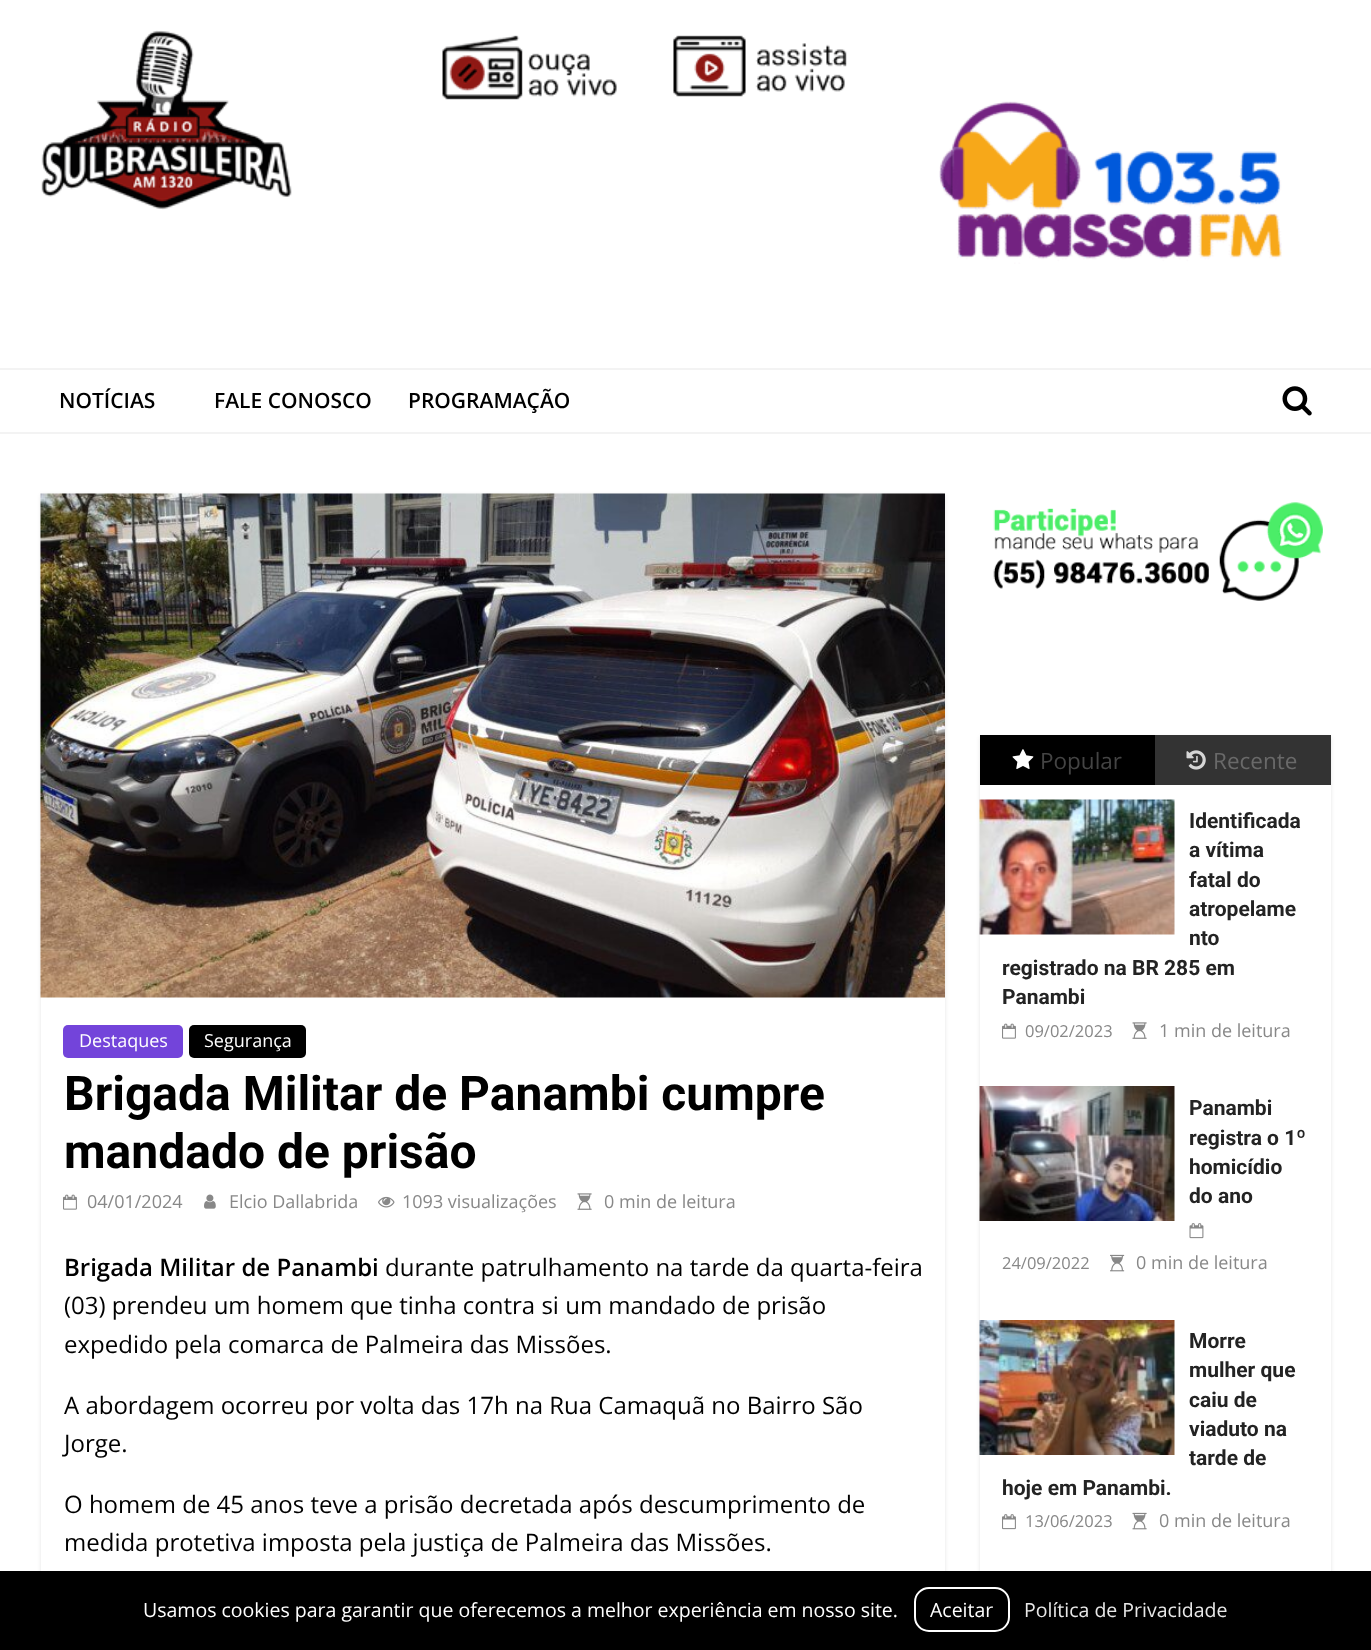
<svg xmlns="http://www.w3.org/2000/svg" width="1371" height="1650">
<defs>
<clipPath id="clip1"><path d="M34 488h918v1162h-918zm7 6h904v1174h-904z" clip-rule="evenodd"/></clipPath>
<clipPath id="clip2"><path d="M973 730h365v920h-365zm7 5h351v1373h-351z" clip-rule="evenodd"/></clipPath>
</defs>
<rect width="100%" height="100%" fill="#fff"/>
<image x="41" y="30" width="251" height="180" href="media/1.png"/>
<image x="442" y="35" width="175" height="65" href="media/2.png"/>
<image x="673" y="35" width="174" height="62" href="media/3.png"/>
<image x="939" y="101" width="343" height="163" href="media/4.png"/>
<rect y="368" width="1371" height="2" fill="#f3f3f3"/>
<rect y="432" width="1371" height="2" fill="#f3f3f3"/>
<text x="59" y="408" style="font-family:Open Sans;font-size:21px;font-weight:600;fill:#000">NOTÍCIAS</text>
<text x="214" y="408" style="font-family:Open Sans;font-size:21px;font-weight:600;fill:#000">FALE CONOSCO</text>
<text x="408" y="408" style="font-family:Open Sans;font-size:21px;font-weight:600;fill:#000">PROGRAMAÇÃO</text>
<image x="1282" y="386" width="30" height="30" href="media/5.png"/>
<g clip-path="url(#clip1)">
<rect x="41" y="495" width="904" height="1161" fill="#0000001a" filter="blur(2px)"/>
</g>
<image x="40" y="493" width="905" height="505" href="media/6.png"/>
<rect x="63" y="1025" width="120" height="33" rx="5" fill="#7344da"/>
<text x="79" y="1047" style="font-family:Open Sans;font-size:18px;fill:#fff">Destaques</text>
<rect x="189" y="1025" width="117" height="33" rx="5" fill="#000"/>
<text x="204" y="1047" style="font-family:Open Sans;font-size:18px;fill:#fff">Segurança</text>
<text x="64" y="1110" style="font-family:Roboto;font-size:48px;font-weight:bold;fill:#000">Brigada Militar de Panambi cumpre</text>
<text x="64" y="1168" style="font-family:Roboto;font-size:48px;font-weight:bold;fill:#000">mandado de prisão</text>
<image x="63" y="1194" width="14" height="16" href="media/7.png"/>
<text x="87" y="1208" style="font-family:Open Sans;font-size:18px;fill:#888">04/01/2024</text>
<image x="204" y="1194" width="12" height="15" href="media/8.png"/>
<text x="229" y="1208" style="font-family:Open Sans;font-size:18px;fill:#888">Elcio Dallabrida</text>
<image x="378" y="1196" width="17" height="12" href="media/9.png"/>
<text x="402" y="1208" style="font-family:Open Sans;font-size:18px;fill:#888">1093 visualizações</text>
<image x="577" y="1193" width="15" height="17" href="media/10.png"/>
<text x="604" y="1208" style="font-family:Open Sans;font-size:18px;fill:#888">0 min de leitura</text>
<text x="64" y="1276" style="font-family:Open Sans;font-size:24px;font-weight:600;fill:#000">Brigada Militar de Panambi</text>
<text x="385" y="1276" style="font-family:Open Sans;font-size:24px;fill:#000">durante patrulhamento na tarde da quarta-feira</text>
<text x="64" y="1314" style="font-family:Open Sans;font-size:24px;fill:#000">(03) prendeu um homem que tinha contra si um mandado de prisão</text>
<text x="64" y="1353" style="font-family:Open Sans;font-size:24px;fill:#000">expedido pela comarca de Palmeira das Missões.</text>
<text x="64" y="1414" style="font-family:Open Sans;font-size:24px;fill:#000">A abordagem ocorreu por volta das 17h na Rua Camaquã no Bairro São</text>
<text x="64" y="1452" style="font-family:Open Sans;font-size:24px;fill:#000">Jorge.</text>
<text x="64" y="1513" style="font-family:Open Sans;font-size:24px;fill:#000">O homem de 45 anos teve a prisão decretada após descumprimento de</text>
<text x="64" y="1551" style="font-family:Open Sans;font-size:24px;fill:#000">medida protetiva imposta pela justiça de Palmeira das Missões.</text>
<image x="993" y="502" width="330" height="99" href="media/11.png"/>
<g clip-path="url(#clip2)">
<rect x="980" y="737" width="351" height="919" fill="#0000001a" filter="blur(2px)"/>
</g>
<rect x="980" y="735" width="175" height="50" fill="#000"/>
<image x="1012" y="749" width="22" height="20" href="media/12.png"/>
<text x="1040" y="769" style="font-family:Open Sans;font-size:22.5px;fill:#444">Popular</text>
<rect x="1155" y="735" width="176" height="50" fill="#000000cc"/>
<image x="1186" y="750" width="20" height="20" href="media/13.png"/>
<text x="1213" y="769" style="font-family:Open Sans;font-size:22.5px;fill:#696969">Recente</text>
<image x="979" y="799" width="196" height="136" href="media/14.png"/>
<text x="1189" y="828" style="font-family:Roboto;font-size:21px;font-weight:bold;fill:#232323">Identificada</text>
<text x="1189" y="857" style="font-family:Roboto;font-size:21px;font-weight:bold;fill:#232323">a vítima</text>
<text x="1189" y="887" style="font-family:Roboto;font-size:21px;font-weight:bold;fill:#232323">fatal do</text>
<text x="1189" y="916" style="font-family:Roboto;font-size:21px;font-weight:bold;fill:#232323">atropelame</text>
<text x="1189" y="945" style="font-family:Roboto;font-size:21px;font-weight:bold;fill:#232323">nto</text>
<text x="1002" y="975" style="font-family:Roboto;font-size:21px;font-weight:bold;fill:#232323">registrado na BR 285 em</text>
<text x="1002" y="1004" style="font-family:Roboto;font-size:21px;font-weight:bold;fill:#232323">Panambi</text>
<image x="1002" y="1023" width="14" height="16" href="media/7.png"/>
<text x="1025" y="1037" style="font-family:Open Sans;font-size:16.5px;fill:#888">09/02/2023</text>
<image x="1132" y="1022" width="15" height="17" href="media/10.png"/>
<text x="1159" y="1037" style="font-family:Open Sans;font-size:18px;fill:#888">1 min de leitura</text>
<image x="979" y="1086" width="196" height="135" href="media/15.png"/>
<text x="1189" y="1115" style="font-family:Roboto;font-size:21px;font-weight:bold;fill:#232323">Panambi</text>
<text x="1189" y="1145" style="font-family:Roboto;font-size:21px;font-weight:bold;fill:#232323">registra o 1º</text>
<text x="1189" y="1174" style="font-family:Roboto;font-size:21px;font-weight:bold;fill:#232323">homicídio</text>
<text x="1189" y="1203" style="font-family:Roboto;font-size:21px;font-weight:bold;fill:#232323">do ano</text>
<image x="1189" y="1223" width="15" height="16" href="media/16.png"/>
<text x="1002" y="1269" style="font-family:Open Sans;font-size:16.5px;fill:#888">24/09/2022</text>
<image x="1110" y="1254" width="15" height="18" href="media/17.png"/>
<text x="1136" y="1269" style="font-family:Open Sans;font-size:18px;fill:#888">0 min de leitura</text>
<image x="979" y="1320" width="196" height="135" href="media/18.png"/>
<text x="1189" y="1348" style="font-family:Roboto;font-size:21px;font-weight:bold;fill:#232323">Morre</text>
<text x="1189" y="1377" style="font-family:Roboto;font-size:21px;font-weight:bold;fill:#232323">mulher que</text>
<text x="1189" y="1407" style="font-family:Roboto;font-size:21px;font-weight:bold;fill:#232323">caiu de</text>
<text x="1189" y="1436" style="font-family:Roboto;font-size:21px;font-weight:bold;fill:#232323">viaduto na</text>
<text x="1189" y="1465" style="font-family:Roboto;font-size:21px;font-weight:bold;fill:#232323">tarde de</text>
<text x="1002" y="1495" style="font-family:Roboto;font-size:21px;font-weight:bold;fill:#232323">hoje em Panambi.</text>
<image x="1002" y="1514" width="14" height="16" href="media/19.png"/>
<text x="1025" y="1527" style="font-family:Open Sans;font-size:16.5px;fill:#888">13/06/2023</text>
<image x="1132" y="1512" width="15" height="18" href="media/20.png"/>
<text x="1159" y="1527" style="font-family:Open Sans;font-size:18px;fill:#888">0 min de leitura</text>
<rect y="1571" width="1371" height="79" fill="#000"/>
<text x="143" y="1617" style="font-family:Open Sans;font-size:19.5px;fill:#fff">Usamos cookies para garantir que oferecemos a melhor experiência em nosso site.</text>
<rect x="915" y="1588" width="94" height="43" rx="14" fill="none" stroke="#fff" stroke-width="2"/>
<text x="930" y="1617" style="font-family:Open Sans;font-size:19.5px;fill:#fff">Aceitar</text>
<text x="1024" y="1617" style="font-family:Open Sans;font-size:19.5px;fill:#e8e8e8">Política de Privacidade</text>
</svg>
